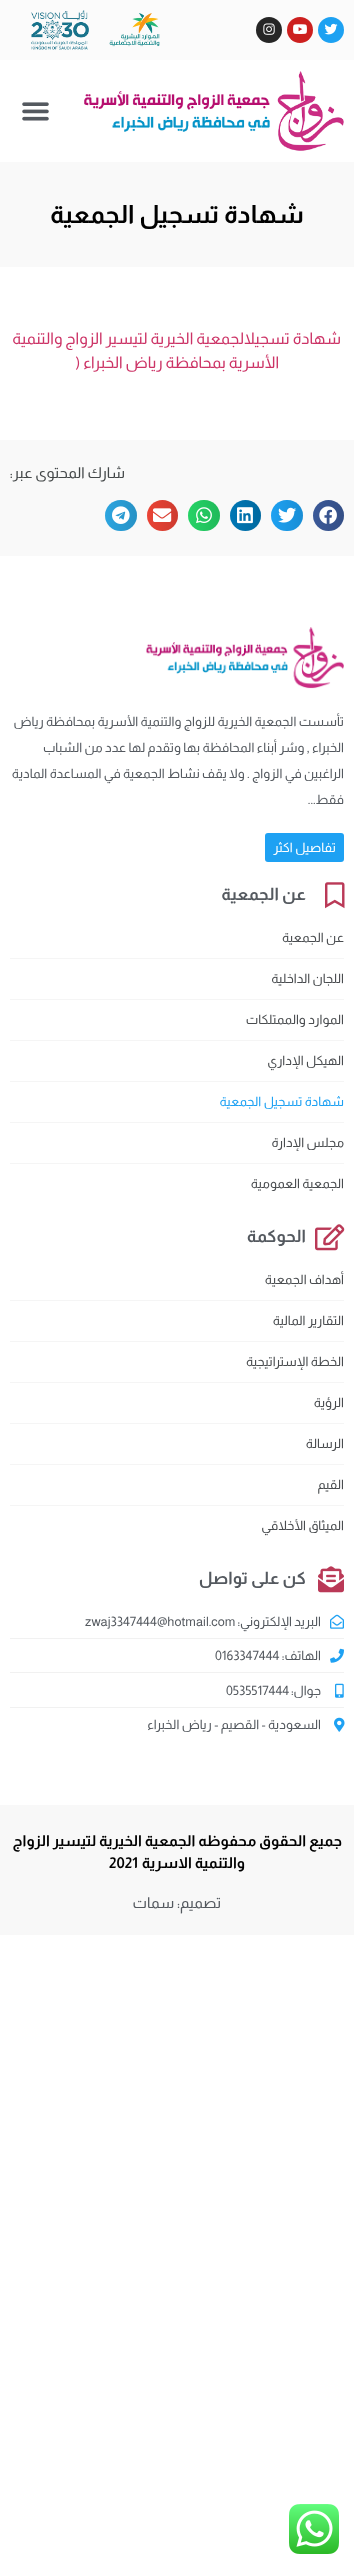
<svg xmlns="http://www.w3.org/2000/svg" width="354" height="2569">
<defs>
<linearGradient id="g1" gradientUnits="userSpaceOnUse" x1="344" y1="516" x2="313" y2="516"><stop offset="0" stop-color="#000" stop-opacity="0.12"/><stop offset="1" stop-color="#000" stop-opacity="0"/></linearGradient>
<linearGradient id="g2" gradientUnits="userSpaceOnUse" x1="303" y1="516" x2="271" y2="516"><stop offset="0" stop-color="#000" stop-opacity="0.12"/><stop offset="1" stop-color="#000" stop-opacity="0"/></linearGradient>
<linearGradient id="g3" gradientUnits="userSpaceOnUse" x1="261" y1="516" x2="230" y2="516"><stop offset="0" stop-color="#000" stop-opacity="0.12"/><stop offset="1" stop-color="#000" stop-opacity="0"/></linearGradient>
<linearGradient id="g4" gradientUnits="userSpaceOnUse" x1="220" y1="516" x2="188" y2="516"><stop offset="0" stop-color="#000" stop-opacity="0.12"/><stop offset="1" stop-color="#000" stop-opacity="0"/></linearGradient>
<linearGradient id="g5" gradientUnits="userSpaceOnUse" x1="178" y1="516" x2="147" y2="516"><stop offset="0" stop-color="#000" stop-opacity="0.12"/><stop offset="1" stop-color="#000" stop-opacity="0"/></linearGradient>
<linearGradient id="g6" gradientUnits="userSpaceOnUse" x1="137" y1="516" x2="105" y2="516"><stop offset="0" stop-color="#000" stop-opacity="0.12"/><stop offset="1" stop-color="#000" stop-opacity="0"/></linearGradient>
</defs>
<rect width="100%" height="100%" fill="#fff"/>
<rect width="354" height="60" fill="#fbfbfb"/>
<circle cx="331" cy="30" r="13" fill="#1da1f2"/>
<image x="324" y="23" width="14" height="12" href="media/1.png"/>
<circle cx="300" cy="30" r="13" fill="#cd201f"/>
<image x="293" y="24" width="14" height="10" href="media/2.png"/>
<circle cx="269" cy="30" r="13" fill="#262626"/>
<image x="263" y="23" width="12" height="12" href="media/3.png"/>
<image x="109" y="13" width="51" height="34" href="media/4.png"/>
<image x="31" y="10" width="58" height="40" href="media/5.png"/>
<image x="84" y="71" width="260" height="80" href="media/6.png"/>
<image x="22" y="102" width="27" height="19" href="media/7.png"/>
<rect y="162" width="354" height="105" fill="#f9f9f9"/>
<text x="304" y="223" style="font-family:Almarai;font-size:25px;font-weight:bold;direction:rtl;fill:#000">شهادة تسجيل الجمعية</text>
<text x="341" y="344" style="font-family:Almarai;font-size:16px;direction:rtl;fill:#c36">شهادة تسجيلالجمعية الخيرية لتيسير الزواج والتنمية</text>
<text x="279" y="368" style="font-family:Almarai;font-size:16px;direction:rtl;fill:#c36">الأسرية بمحافظة رياض الخبراء (</text>
<rect y="440" width="354" height="116" fill="#f9f9f9"/>
<text x="125" y="478" style="font-family:Almarai;font-size:15px;direction:rtl;fill:#434748">شارك المحتوى عبر:</text>
<circle cx="328.5" cy="515.5" r="15.5" fill="#3b5998"/>
<circle cx="328.5" cy="515.5" r="15.5" fill="url(#g1)"/>
<image x="319" y="506" width="18" height="18" href="media/8.png"/>
<rect x="271" y="500" width="32" height="31" rx="15.5" fill="#1da1f2"/>
<rect x="271" y="500" width="32" height="31" rx="15.5" fill="url(#g2)"/>
<image x="278" y="507" width="18" height="16" href="media/9.png"/>
<circle cx="245.5" cy="515.5" r="15.5" fill="#0077b5"/>
<circle cx="245.5" cy="515.5" r="15.5" fill="url(#g3)"/>
<image x="237" y="507" width="16" height="17" href="media/10.png"/>
<rect x="188" y="500" width="32" height="31" rx="15.5" fill="#25d366"/>
<rect x="188" y="500" width="32" height="31" rx="15.5" fill="url(#g4)"/>
<image x="196" y="507" width="16" height="17" href="media/11.png"/>
<circle cx="162.5" cy="515.5" r="15.5" fill="#ea4335"/>
<circle cx="162.5" cy="515.5" r="15.5" fill="url(#g5)"/>
<image x="153" y="508" width="19" height="14" href="media/12.png"/>
<rect x="105" y="500" width="32" height="31" rx="15.5" fill="#2ca5e0"/>
<rect x="105" y="500" width="32" height="31" rx="15.5" fill="url(#g6)"/>
<image x="112" y="506" width="18" height="18" href="media/13.png"/>
<image x="146" y="627" width="198" height="62" href="media/14.png"/>
<text x="344" y="726" style="font-family:Almarai;font-size:13px;direction:rtl;fill:#54595f">تأسست الجمعية الخيرية للزواج والتنمية الأسرية بمحافظة رياض</text>
<text x="344" y="752" style="font-family:Almarai;font-size:13px;direction:rtl;fill:#54595f">الخبراء , وسُر أبناء المحافظة بها وتقدم لها عدد من الشباب</text>
<text x="344" y="778" style="font-family:Almarai;font-size:13px;direction:rtl;fill:#54595f">الراغبين في الزواج . ولا يقف نشاط الجمعية في المساعدة المادية</text>
<text x="344" y="804" style="font-family:Almarai;font-size:13px;direction:rtl;fill:#54595f">فقط...</text>
<rect x="265" y="833" width="79" height="29" rx="3" fill="#1ea1f3"/>
<text x="336" y="852" style="font-family:Almarai;font-size:13px;direction:rtl;fill:#fff">تفاصيل اكثر</text>
<image x="325" y="882" width="20" height="27" href="media/15.png"/>
<text x="306" y="900" style="font-family:Almarai;font-size:17px;font-weight:bold;direction:rtl;fill:#54595f">عن الجمعية</text>
<rect x="10" y="958" width="334" height="1" fill="#f5f5f5"/>
<text x="344" y="942" style="font-family:Almarai;font-size:13px;direction:rtl;fill:#494c4f">عن الجمعية</text>
<rect x="10" y="999" width="334" height="1" fill="#f5f5f5"/>
<text x="344" y="983" style="font-family:Almarai;font-size:13px;direction:rtl;fill:#494c4f">اللجان الداخلية</text>
<rect x="10" y="1040" width="334" height="1" fill="#f5f5f5"/>
<text x="344" y="1024" style="font-family:Almarai;font-size:13px;direction:rtl;fill:#494c4f">الموارد والممتلكات</text>
<rect x="10" y="1081" width="334" height="1" fill="#f5f5f5"/>
<text x="344" y="1065" style="font-family:Almarai;font-size:13px;direction:rtl;fill:#494c4f">الهيكل الإداري</text>
<rect x="10" y="1122" width="334" height="1" fill="#f5f5f5"/>
<text x="344" y="1106" style="font-family:Almarai;font-size:13px;direction:rtl;fill:#1ea1f3">شهادة تسجيل الجمعية</text>
<rect x="10" y="1163" width="334" height="1" fill="#f5f5f5"/>
<text x="344" y="1147" style="font-family:Almarai;font-size:13px;direction:rtl;fill:#494c4f">مجلس الإدارة</text>
<text x="344" y="1188" style="font-family:Almarai;font-size:13px;direction:rtl;fill:#494c4f">الجمعية العمومية</text>
<image x="315" y="1224" width="30" height="27" href="media/16.png"/>
<text x="306" y="1242" style="font-family:Almarai;font-size:17px;font-weight:bold;direction:rtl;fill:#54595f">الحوكمة</text>
<rect x="10" y="1300" width="334" height="1" fill="#f5f5f5"/>
<text x="344" y="1284" style="font-family:Almarai;font-size:13px;direction:rtl;fill:#494c4f">أهداف الجمعية</text>
<rect x="10" y="1341" width="334" height="1" fill="#f5f5f5"/>
<text x="344" y="1325" style="font-family:Almarai;font-size:13px;direction:rtl;fill:#494c4f">التقارير المالية</text>
<rect x="10" y="1382" width="334" height="1" fill="#f5f5f5"/>
<text x="344" y="1366" style="font-family:Almarai;font-size:13px;direction:rtl;fill:#494c4f">الخطة الإستراتيجية</text>
<rect x="10" y="1423" width="334" height="1" fill="#f5f5f5"/>
<text x="344" y="1407" style="font-family:Almarai;font-size:13px;direction:rtl;fill:#494c4f">الرؤية</text>
<rect x="10" y="1464" width="334" height="1" fill="#f5f5f5"/>
<text x="344" y="1448" style="font-family:Almarai;font-size:13px;direction:rtl;fill:#494c4f">الرسالة</text>
<rect x="10" y="1505" width="334" height="1" fill="#f5f5f5"/>
<text x="344" y="1489" style="font-family:Almarai;font-size:13px;direction:rtl;fill:#494c4f">القيم</text>
<text x="344" y="1530" style="font-family:Almarai;font-size:13px;direction:rtl;fill:#494c4f">الميثاق الأخلاقي</text>
<image x="318" y="1566" width="26" height="27" href="media/17.png"/>
<text x="306" y="1584" style="font-family:Almarai;font-size:17px;font-weight:bold;direction:rtl;fill:#54595f">كن على تواصل</text>
<image x="330" y="1614" width="14" height="15" href="media/18.png"/>
<text x="321" y="1626" style="font-family:Almarai;font-size:13px;direction:rtl;fill:#54595f">البريد الإلكتروني:</text>
<text x="85" y="1626" style="font-family:Almarai;font-size:13px;fill:#54595f">zwaj3347444@hotmail.com</text>
<rect x="10" y="1638" width="334" height="1" fill="#f1f1f1"/>
<image x="330" y="1648" width="14" height="15" href="media/19.png"/>
<text x="321" y="1660" style="font-family:Almarai;font-size:13px;direction:rtl;fill:#54595f">الهاتف:</text>
<text x="215" y="1660" style="font-family:Almarai;font-size:13px;fill:#54595f">0163347444</text>
<rect x="10" y="1672" width="334" height="1" fill="#f1f1f1"/>
<image x="335" y="1683" width="9" height="15" href="media/20.png"/>
<text x="321" y="1695" style="font-family:Almarai;font-size:13px;direction:rtl;fill:#54595f">جوال:</text>
<text x="226" y="1695" style="font-family:Almarai;font-size:13px;fill:#54595f">0535517444</text>
<rect x="10" y="1707" width="334" height="1" fill="#f1f1f1"/>
<image x="334" y="1717" width="11" height="15" href="media/21.png"/>
<text x="321" y="1729" style="font-family:Almarai;font-size:13px;direction:rtl;fill:#54595f">السعودية - القصيم - رياض الخبراء</text>
<rect y="1805" width="354" height="130" fill="#f8f8f8"/>
<text x="342" y="1846" style="font-family:Almarai;font-size:15px;font-weight:bold;direction:rtl;fill:#000">جميع الحقوق محفوظه الجمعية الخيرية لتيسير الزواج</text>
<text x="245" y="1868" style="font-family:Almarai;font-size:15px;font-weight:bold;direction:rtl;fill:#000">والتنمية الاسرية</text>
<text x="109" y="1868" style="font-family:Almarai;font-size:15px;font-weight:bold;fill:#000">2021</text>
<text x="221" y="1908" style="font-family:Almarai;font-size:15px;direction:rtl;fill:#54595f">تصميم: سمات</text>
<image x="289" y="2504" width="50" height="50" href="media/22.png"/>
</svg>
